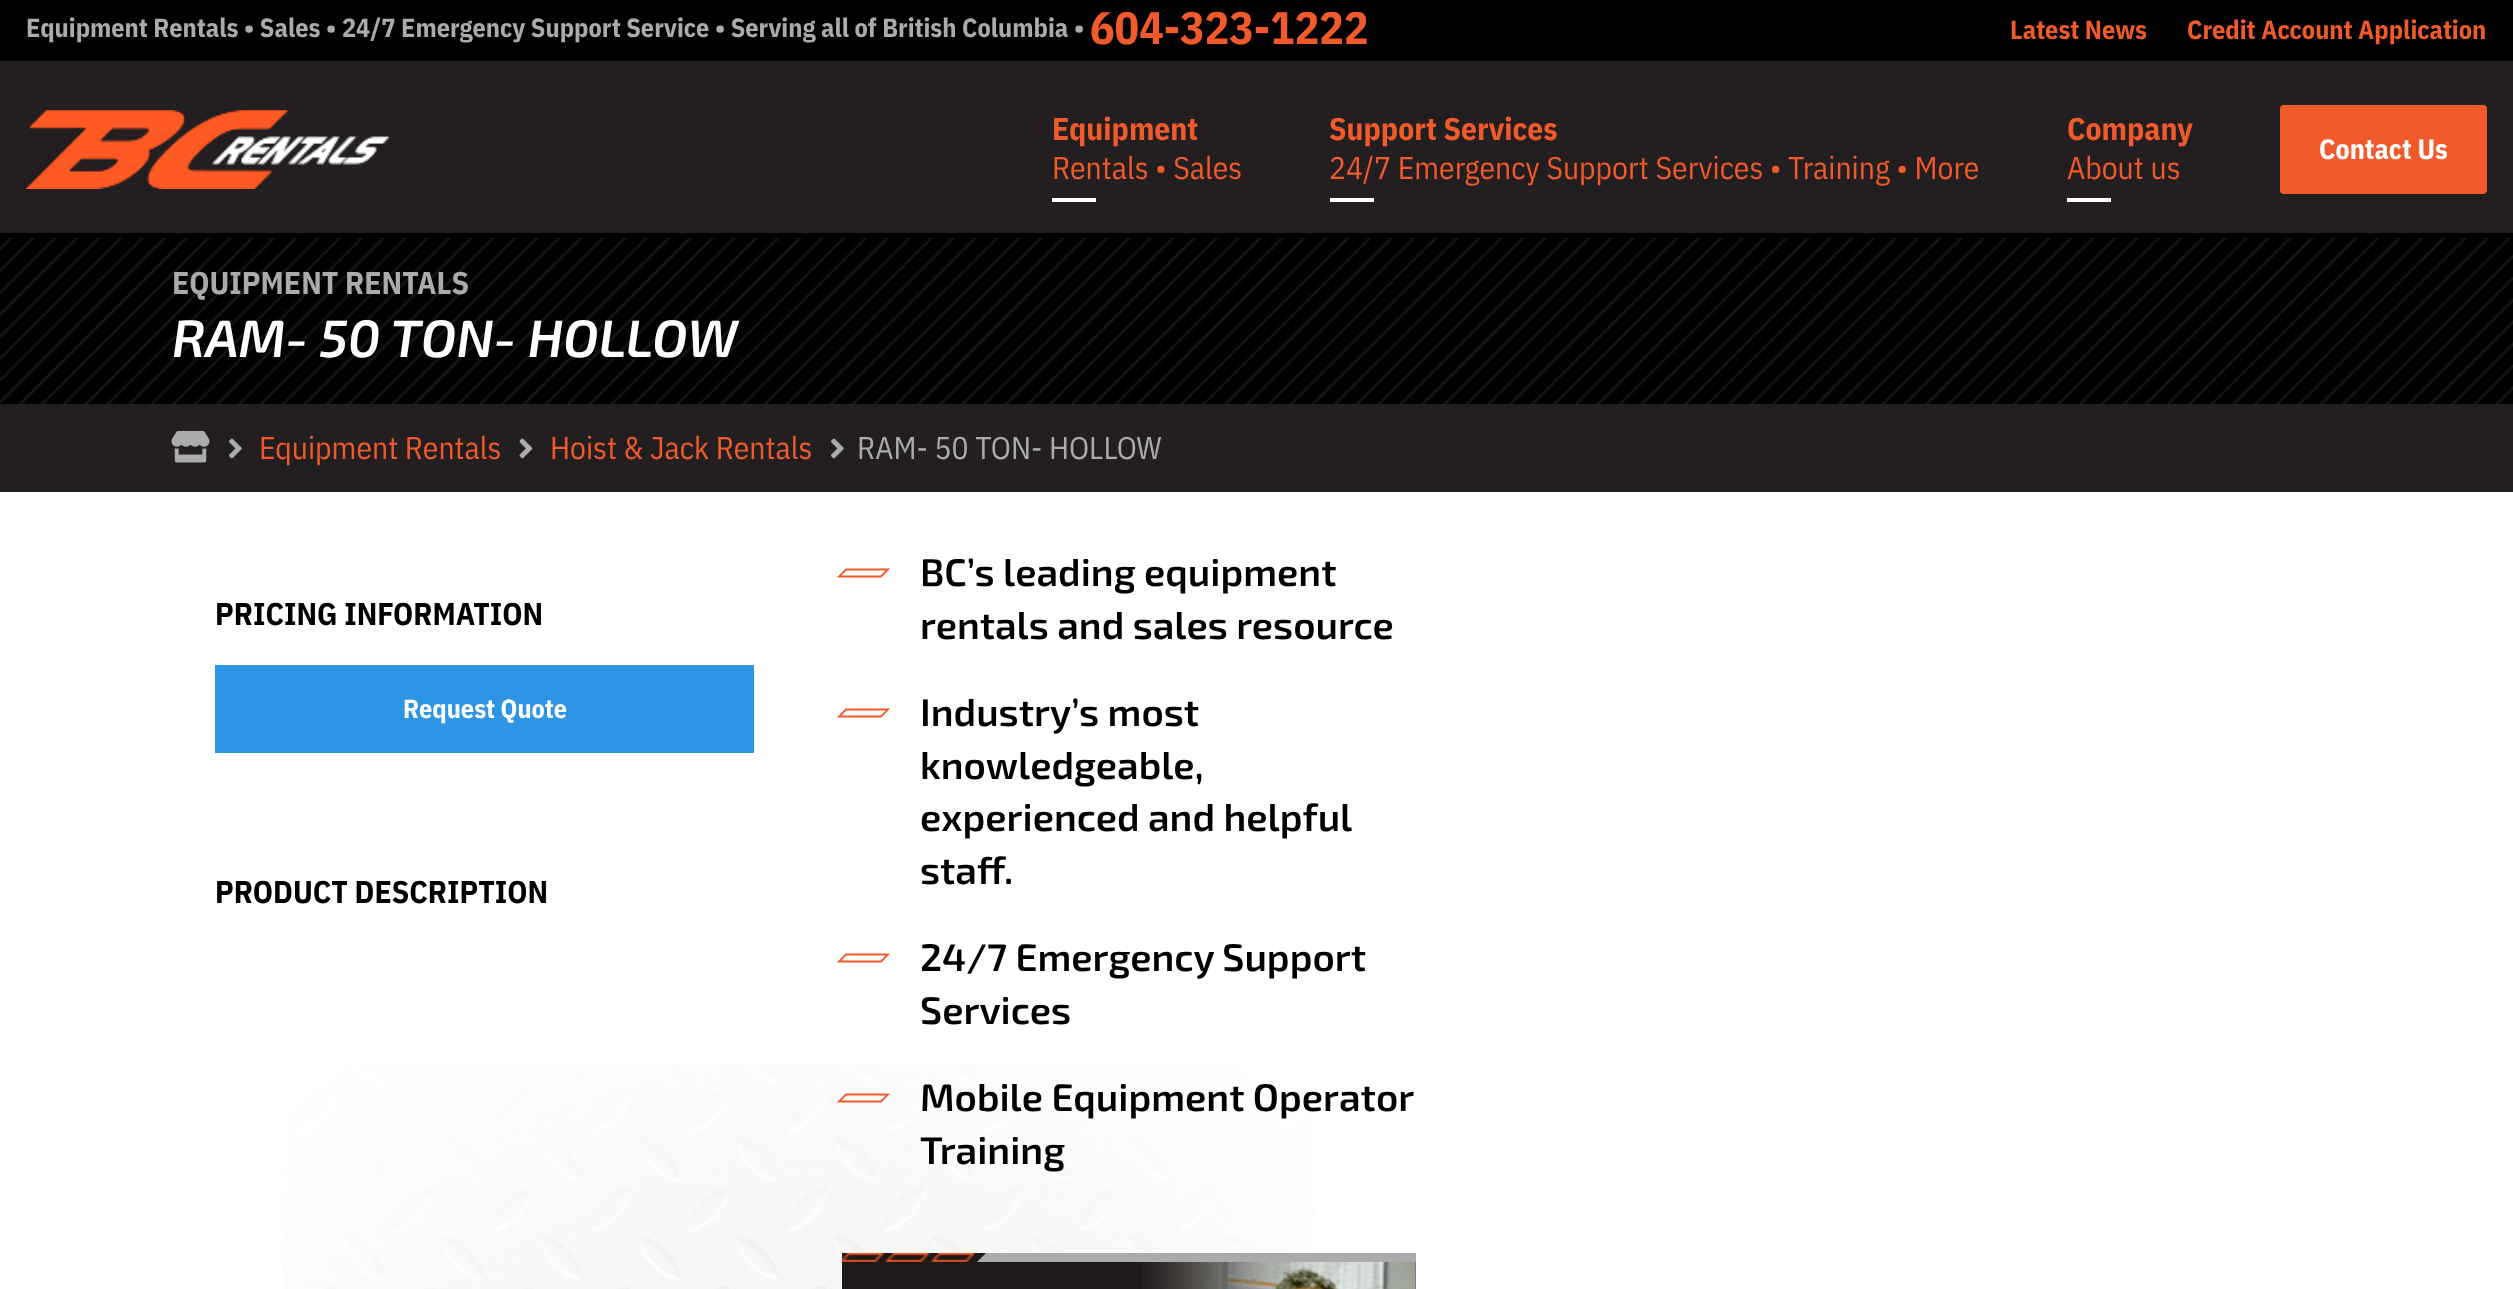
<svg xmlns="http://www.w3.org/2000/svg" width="2513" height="1289">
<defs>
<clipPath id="clip1"><rect x="842" y="1253" width="574" height="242"/></clipPath>
</defs>
<rect width="100%" height="100%" fill="#fff"/>
<rect width="2513" height="61" fill="#000"/>
<text x="26" y="37" style="font-family:IBM Plex Sans Condensed;font-size:26.25px;font-weight:bold;fill:#ababab">Equipment Rentals • Sales • 24/7 Emergency Support Service • Serving all of British Columbia •</text>
<text x="1090" y="44" style="font-family:IBM Plex Sans Condensed;font-size:45.5px;font-weight:bold;fill:#f15a2b">604-323-1222</text>
<text x="2010" y="39" style="font-family:IBM Plex Sans Condensed;font-size:26.25px;font-weight:bold;fill:#f15a2b">Latest News</text>
<text x="2187" y="39" style="font-family:IBM Plex Sans Condensed;font-size:26.25px;font-weight:bold;fill:#f15a2b">Credit Account Application</text>
<rect y="61" width="2513" height="172" fill="#231f20"/>
<image x="26" y="110" width="364" height="79" href="media/1.png"/>
<text x="1052" y="140" style="font-family:IBM Plex Sans Condensed;font-size:31.5px;font-weight:bold;fill:#f15a2b">Equipment</text>
<text x="1052" y="179" style="font-family:IBM Plex Sans Condensed;font-size:31.5px;fill:#f15a2b">Rentals • Sales</text>
<rect x="1052" y="198" width="44" height="4" fill="#fff"/>
<text x="1329" y="140" style="font-family:IBM Plex Sans Condensed;font-size:31.5px;font-weight:bold;fill:#f15a2b">Support Services</text>
<text x="1329" y="179" style="font-family:IBM Plex Sans Condensed;font-size:31.5px;fill:#f15a2b">24/7 Emergency Support Services • Training • More</text>
<rect x="1330" y="198" width="44" height="4" fill="#fff"/>
<text x="2067" y="140" style="font-family:IBM Plex Sans Condensed;font-size:31.5px;font-weight:bold;fill:#f15a2b">Company</text>
<text x="2067" y="179" style="font-family:IBM Plex Sans Condensed;font-size:31.5px;fill:#f15a2b">About us</text>
<rect x="2067" y="198" width="44" height="4" fill="#fff"/>
<rect x="2280" y="105" width="207" height="89" rx="4" fill="#f15a2b"/>
<text x="2319" y="159" style="font-family:IBM Plex Sans Condensed;font-size:28px;font-weight:bold;fill:#fff">Contact Us</text>
<rect y="233" width="2513" height="5" fill="#000"/>
<image x="0" y="238" width="2513" height="166" href="media/2.png"/>
<text x="172" y="294" style="font-family:IBM Plex Sans Condensed;font-size:31.5px;font-weight:bold;fill:#ababab">EQUIPMENT RENTALS</text>
<text x="172" y="357" style="font-family:'Exo 2';font-size:52.5px;font-weight:600;font-style:italic;fill:#fff">RAM- 50 TON- HOLLOW</text>
<rect y="404" width="2513" height="88" fill="#231f20"/>
<image x="171" y="430" width="39" height="33" href="media/3.png"/>
<image x="229" y="438" width="13" height="21" href="media/4.png"/>
<text x="259" y="459" style="font-family:IBM Plex Sans Condensed;font-size:31.5px;fill:#f15a2b">Equipment Rentals</text>
<image x="519" y="438" width="14" height="21" href="media/5.png"/>
<text x="550" y="459" style="font-family:IBM Plex Sans Condensed;font-size:31.5px;fill:#f15a2b">Hoist &amp; Jack Rentals</text>
<image x="831" y="438" width="13" height="21" href="media/4.png"/>
<text x="857" y="459" style="font-family:IBM Plex Sans Condensed;font-size:31.5px;fill:#ababab">RAM- 50 TON- HOLLOW</text>
<text x="215" y="625" style="font-family:IBM Plex Sans Condensed;font-size:31.5px;font-weight:bold;fill:#000">PRICING INFORMATION</text>
<rect x="215" y="665" width="539" height="88" fill="#2e95e4"/>
<text x="403" y="718" style="font-family:IBM Plex Sans Condensed;font-size:26.25px;font-weight:bold;fill:#fff">Request Quote</text>
<text x="215" y="903" style="font-family:IBM Plex Sans Condensed;font-size:31.5px;font-weight:bold;fill:#000">PRODUCT DESCRIPTION</text>
<path d="M846 569.5h42l-7 7h-42z" fill="none" stroke="#f15a2b" stroke-width="1.8"/>
<text x="920" y="586" style="font-family:'Exo 2';font-size:38.5px;font-weight:600;fill:#000">BC’s leading equipment</text>
<text x="920" y="639" style="font-family:'Exo 2';font-size:38.5px;font-weight:600;fill:#000">rentals and sales resource</text>
<path d="M846 709.5h42l-7 7h-42z" fill="none" stroke="#f15a2b" stroke-width="1.8"/>
<text x="920" y="726" style="font-family:'Exo 2';font-size:38.5px;font-weight:600;fill:#000">Industry’s most</text>
<text x="920" y="779" style="font-family:'Exo 2';font-size:38.5px;font-weight:600;fill:#000">knowledgeable,</text>
<text x="920" y="831" style="font-family:'Exo 2';font-size:38.5px;font-weight:600;fill:#000">experienced and helpful</text>
<text x="920" y="884" style="font-family:'Exo 2';font-size:38.5px;font-weight:600;fill:#000">staff.</text>
<path d="M846 954.5h42l-7 7h-42z" fill="none" stroke="#f15a2b" stroke-width="1.8"/>
<text x="920" y="971" style="font-family:'Exo 2';font-size:38.5px;font-weight:600;fill:#000">24/7 Emergency Support</text>
<text x="920" y="1024" style="font-family:'Exo 2';font-size:38.5px;font-weight:600;fill:#000">Services</text>
<image x="283" y="1063" width="1032" height="226" href="media/8.png"/>
<path d="M846 1094.5h42l-7 7h-42z" fill="none" stroke="#f15a2b" stroke-width="1.8"/>
<text x="920" y="1111" style="font-family:'Exo 2';font-size:38.5px;font-weight:600;fill:#000">Mobile Equipment Operator</text>
<text x="920" y="1164" style="font-family:'Exo 2';font-size:38.5px;font-weight:600;fill:#000">Training</text>
<rect x="842" y="1253" width="574" height="36" fill="#1f191a"/>
<image x="1142" y="1261" width="274" height="28" href="media/6.png"/>
<image x="841" y="1253" width="134" height="9" href="media/7.png"/>
<g clip-path="url(#clip1)">
<path d="M986 1253h437l-8 9h-438z" fill="#ababab"/>
</g>
</svg>
